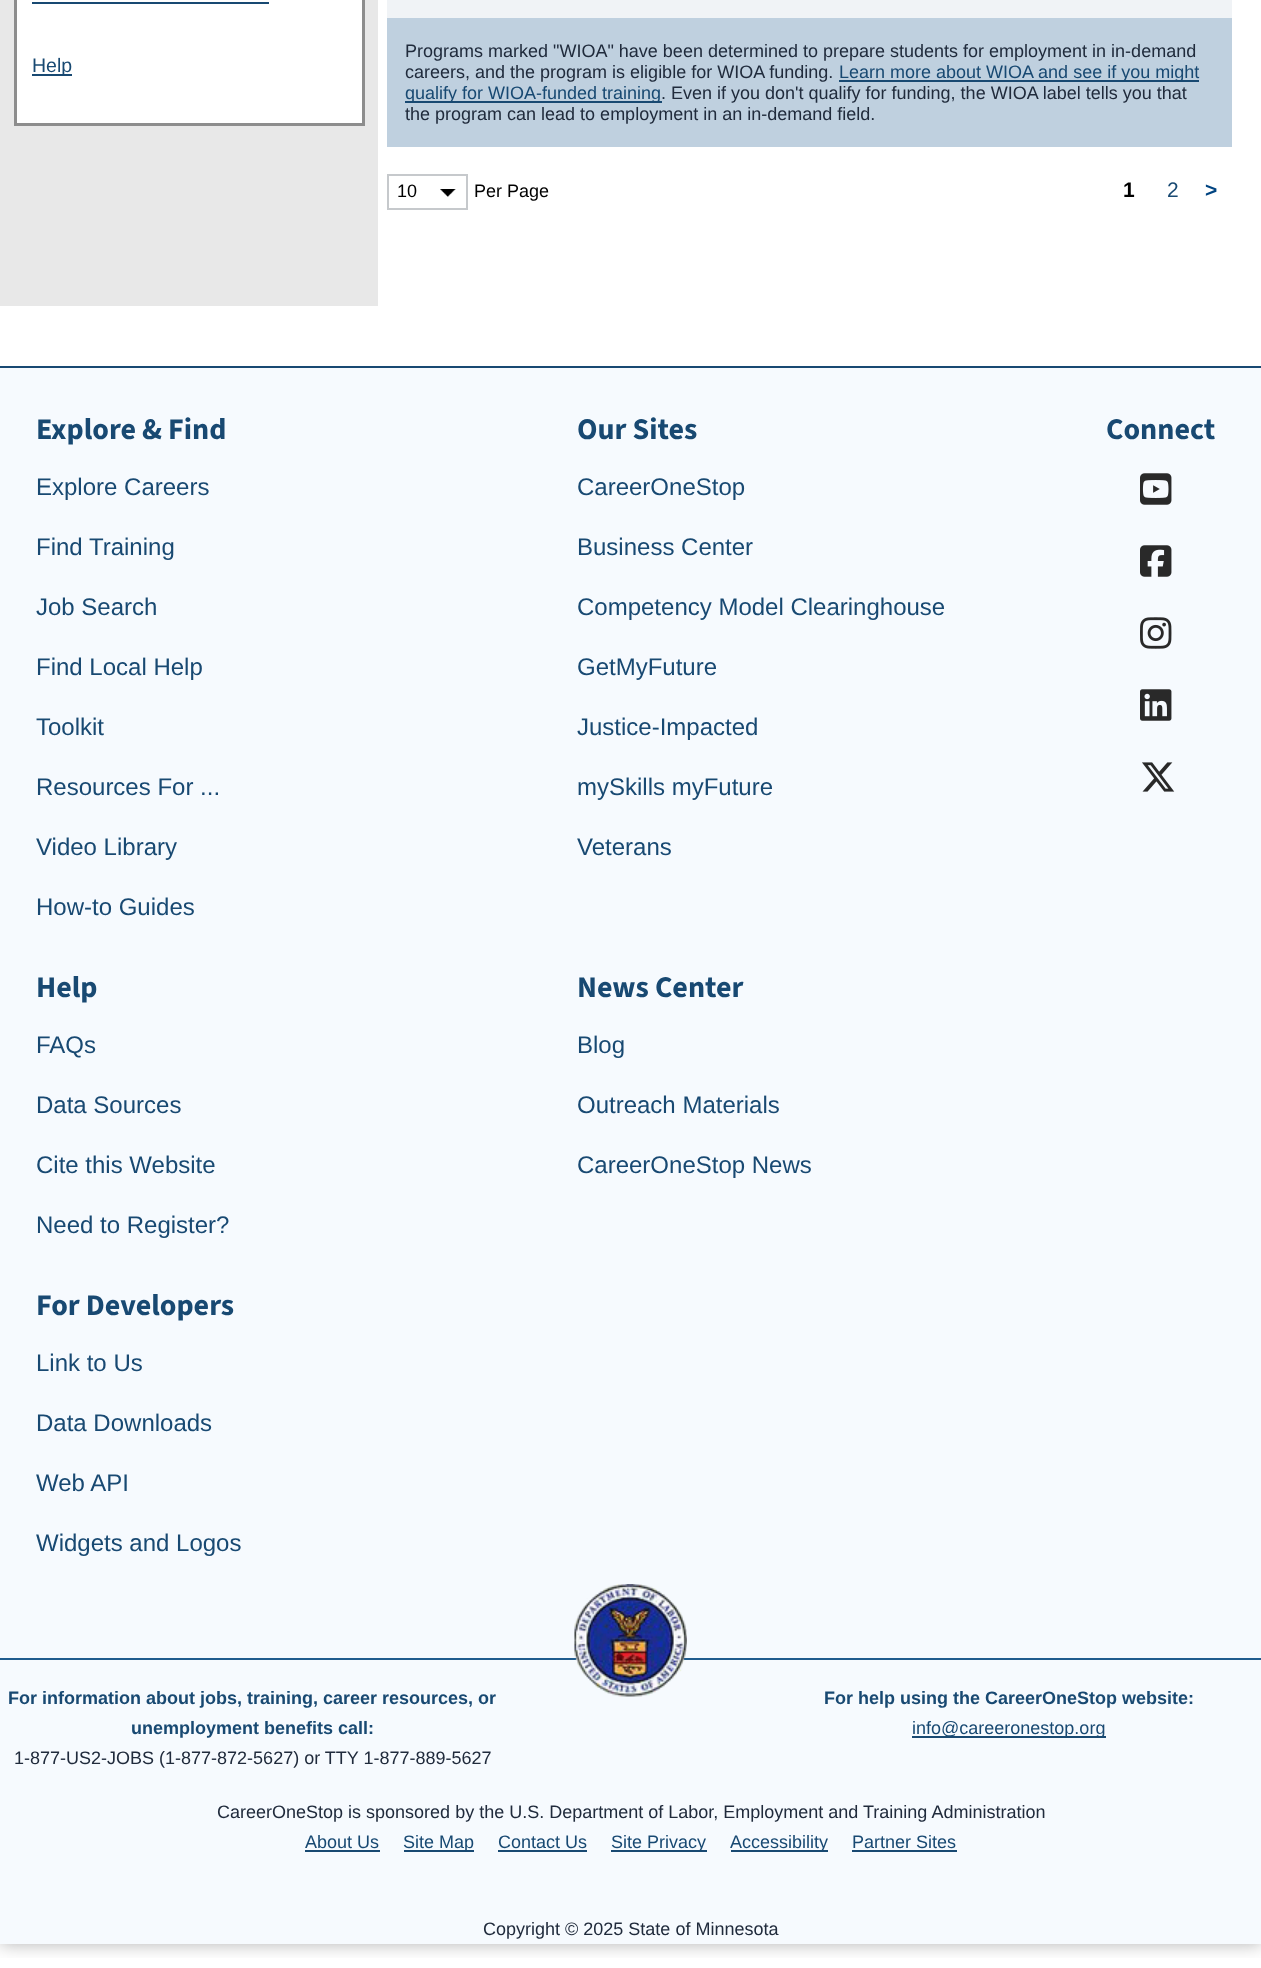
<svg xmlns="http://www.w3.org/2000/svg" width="1261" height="1968">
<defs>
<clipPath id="clip1"><rect x="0" y="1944" width="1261" height="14"/></clipPath>
</defs>
<rect width="100%" height="100%" fill="#fff"/>
<g clip-path="url(#clip1)">
<rect y="-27" width="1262" height="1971" fill="#0000004d" filter="blur(9px)"/>
</g>
<rect width="378" height="306" fill="#e8e8e8"/>
<rect x="15.5" y="-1.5" width="348" height="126" fill="#fff" stroke="#8d8d8d" stroke-width="3"/>
<rect x="32" y="2" width="237" height="2" fill="#184972"/>
<rect x="32" y="74" width="40" height="2" fill="#184972"/>
<text x="32" y="72" style="font-family:Liberation Sans;font-size:19.5px;fill:#184972">Help</text>
<rect x="387" width="845" height="18" fill="#f0f3f6"/>
<rect x="387" y="18" width="845" height="129" fill="#bfd0df"/>
<text x="405" y="57" style="font-family:Liberation Sans;font-size:18px;fill:#202b3c">Programs marked "WIOA" have been determined to prepare students for employment in in-demand</text>
<text x="405" y="78" style="font-family:Liberation Sans;font-size:18px;fill:#202b3c">careers, and the program is eligible for WIOA funding.</text>
<rect x="839" y="80" width="360" height="2" fill="#184972"/>
<text x="839" y="78" style="font-family:Liberation Sans;font-size:18px;fill:#184972">Learn more about WIOA and see if you might</text>
<rect x="405" y="101" width="257" height="2" fill="#184972"/>
<text x="405" y="99" style="font-family:Liberation Sans;font-size:18px;fill:#184972">qualify for WIOA-funded training</text>
<text x="661" y="99" style="font-family:Liberation Sans;font-size:18px;fill:#202b3c">. Even if you don't qualify for funding, the WIOA label tells you that</text>
<text x="405" y="120" style="font-family:Liberation Sans;font-size:18px;fill:#202b3c">the program can lead to employment in an in-demand field.</text>
<image x="440" y="189" width="16" height="8" href="media/1.png"/>
<rect x="388" y="175" width="79" height="34" fill="none" stroke="#c6c9cc" stroke-width="2"/>
<text x="397" y="197" style="font-family:Liberation Sans;font-size:18px;fill:#000">10</text>
<text x="474" y="197" style="font-family:Liberation Sans;font-size:18px;fill:#000">Per Page</text>
<text x="1123" y="197" style="font-family:Liberation Sans;font-size:21px;font-weight:bold;fill:#000">1</text>
<text x="1167" y="197" style="font-family:Liberation Sans;font-size:21px;fill:#184972">2</text>
<text x="1205" y="197" style="font-family:Liberation Sans;font-size:21px;font-weight:bold;fill:#004481">&gt;</text>
<rect y="368" width="1261" height="1576" fill="#f6fafe"/>
<rect y="366" width="1261" height="2" fill="#184972"/>
<text x="36" y="439" style="font-family:'Source Sans 3';font-size:30px;font-weight:200;fill:#184972">Explore &amp; Find</text>
<text x="36" y="495" style="font-family:Liberation Sans;font-size:24px;fill:#184972">Explore Careers</text>
<text x="36" y="555" style="font-family:Liberation Sans;font-size:24px;fill:#184972">Find Training</text>
<text x="36" y="615" style="font-family:Liberation Sans;font-size:24px;fill:#184972">Job Search</text>
<text x="36" y="675" style="font-family:Liberation Sans;font-size:24px;fill:#184972">Find Local Help</text>
<text x="36" y="735" style="font-family:Liberation Sans;font-size:24px;fill:#184972">Toolkit</text>
<text x="36" y="795" style="font-family:Liberation Sans;font-size:24px;fill:#184972">Resources For ...</text>
<text x="36" y="855" style="font-family:Liberation Sans;font-size:24px;fill:#184972">Video Library</text>
<text x="36" y="915" style="font-family:Liberation Sans;font-size:24px;fill:#184972">How-to Guides</text>
<text x="577" y="439" style="font-family:'Source Sans 3';font-size:30px;font-weight:200;fill:#184972">Our Sites</text>
<text x="577" y="495" style="font-family:Liberation Sans;font-size:24px;fill:#184972">CareerOneStop</text>
<text x="577" y="555" style="font-family:Liberation Sans;font-size:24px;fill:#184972">Business Center</text>
<text x="577" y="615" style="font-family:Liberation Sans;font-size:24px;fill:#184972">Competency Model Clearinghouse</text>
<text x="577" y="675" style="font-family:Liberation Sans;font-size:24px;fill:#184972">GetMyFuture</text>
<text x="577" y="735" style="font-family:Liberation Sans;font-size:24px;fill:#184972">Justice-Impacted</text>
<text x="577" y="795" style="font-family:Liberation Sans;font-size:24px;fill:#184972">mySkills myFuture</text>
<text x="577" y="855" style="font-family:Liberation Sans;font-size:24px;fill:#184972">Veterans</text>
<text x="36" y="997" style="font-family:'Source Sans 3';font-size:30px;font-weight:200;fill:#184972">Help</text>
<text x="36" y="1053" style="font-family:Liberation Sans;font-size:24px;fill:#184972">FAQs</text>
<text x="36" y="1113" style="font-family:Liberation Sans;font-size:24px;fill:#184972">Data Sources</text>
<text x="36" y="1173" style="font-family:Liberation Sans;font-size:24px;fill:#184972">Cite this Website</text>
<text x="36" y="1233" style="font-family:Liberation Sans;font-size:24px;fill:#184972">Need to Register?</text>
<text x="36" y="1315" style="font-family:'Source Sans 3';font-size:30px;font-weight:200;fill:#184972">For Developers</text>
<text x="36" y="1371" style="font-family:Liberation Sans;font-size:24px;fill:#184972">Link to Us</text>
<text x="36" y="1431" style="font-family:Liberation Sans;font-size:24px;fill:#184972">Data Downloads</text>
<text x="36" y="1491" style="font-family:Liberation Sans;font-size:24px;fill:#184972">Web API</text>
<text x="36" y="1551" style="font-family:Liberation Sans;font-size:24px;fill:#184972">Widgets and Logos</text>
<text x="577" y="997" style="font-family:'Source Sans 3';font-size:30px;font-weight:200;fill:#184972">News Center</text>
<text x="577" y="1053" style="font-family:Liberation Sans;font-size:24px;fill:#184972">Blog</text>
<text x="577" y="1113" style="font-family:Liberation Sans;font-size:24px;fill:#184972">Outreach Materials</text>
<text x="577" y="1173" style="font-family:Liberation Sans;font-size:24px;fill:#184972">CareerOneStop News</text>
<text x="1106" y="439" style="font-family:'Source Sans 3';font-size:30px;font-weight:200;fill:#184972">Connect</text>
<image x="1140" y="473" width="32" height="32" href="media/2.png"/>
<image x="1140" y="545" width="32" height="32" href="media/3.png"/>
<image x="1140" y="617" width="32" height="32" href="media/4.png"/>
<image x="1140" y="689" width="32" height="32" href="media/5.png"/>
<image x="1142" y="762" width="33" height="30" href="media/6.png"/>
<rect y="1658" width="1261" height="2" fill="#1f5c8e"/>
<image x="574" y="1584" width="113" height="113" href="media/7.png"/>
<text x="8" y="1704" style="font-family:Liberation Sans;font-size:18px;font-weight:bold;fill:#184972">For information about jobs, training, career resources, or</text>
<text x="131" y="1734" style="font-family:Liberation Sans;font-size:18px;font-weight:bold;fill:#184972">unemployment benefits call:</text>
<text x="14" y="1764" style="font-family:Liberation Sans;font-size:18px;fill:#202b3c">1-877-US2-JOBS (1-877-872-5627) or TTY 1-877-889-5627</text>
<text x="824" y="1704" style="font-family:Liberation Sans;font-size:18px;font-weight:bold;fill:#184972">For help using the CareerOneStop website:</text>
<rect x="912" y="1736" width="194" height="2" fill="#184972"/>
<text x="912" y="1734" style="font-family:Liberation Sans;font-size:18px;fill:#184972">info@careeronestop.org</text>
<text x="217" y="1818" style="font-family:Liberation Sans;font-size:18px;fill:#202b3c">CareerOneStop is sponsored by the U.S. Department of Labor, Employment and Training Administration</text>
<text x="305" y="1848" style="font-family:Liberation Sans;font-size:18px;fill:#184972">About Us</text>
<rect x="305" y="1850" width="75" height="2" fill="#184972"/>
<rect x="404" y="1850" width="70" height="2" fill="#184972"/>
<text x="403" y="1848" style="font-family:Liberation Sans;font-size:18px;fill:#184972">Site Map</text>
<text x="498" y="1848" style="font-family:Liberation Sans;font-size:18px;fill:#184972">Contact Us</text>
<rect x="498" y="1850" width="89" height="2" fill="#184972"/>
<rect x="611" y="1850" width="96" height="2" fill="#184972"/>
<text x="611" y="1848" style="font-family:Liberation Sans;font-size:18px;fill:#184972">Site Privacy</text>
<rect x="731" y="1850" width="97" height="2" fill="#184972"/>
<text x="730" y="1848" style="font-family:Liberation Sans;font-size:18px;fill:#184972">Accessibility</text>
<text x="852" y="1848" style="font-family:Liberation Sans;font-size:18px;fill:#184972">Partner Sites</text>
<rect x="852" y="1850" width="105" height="2" fill="#184972"/>
<text x="483" y="1935" style="font-family:Liberation Sans;font-size:18px;fill:#202b3c">Copyright © 2025 State of Minnesota</text>
</svg>
